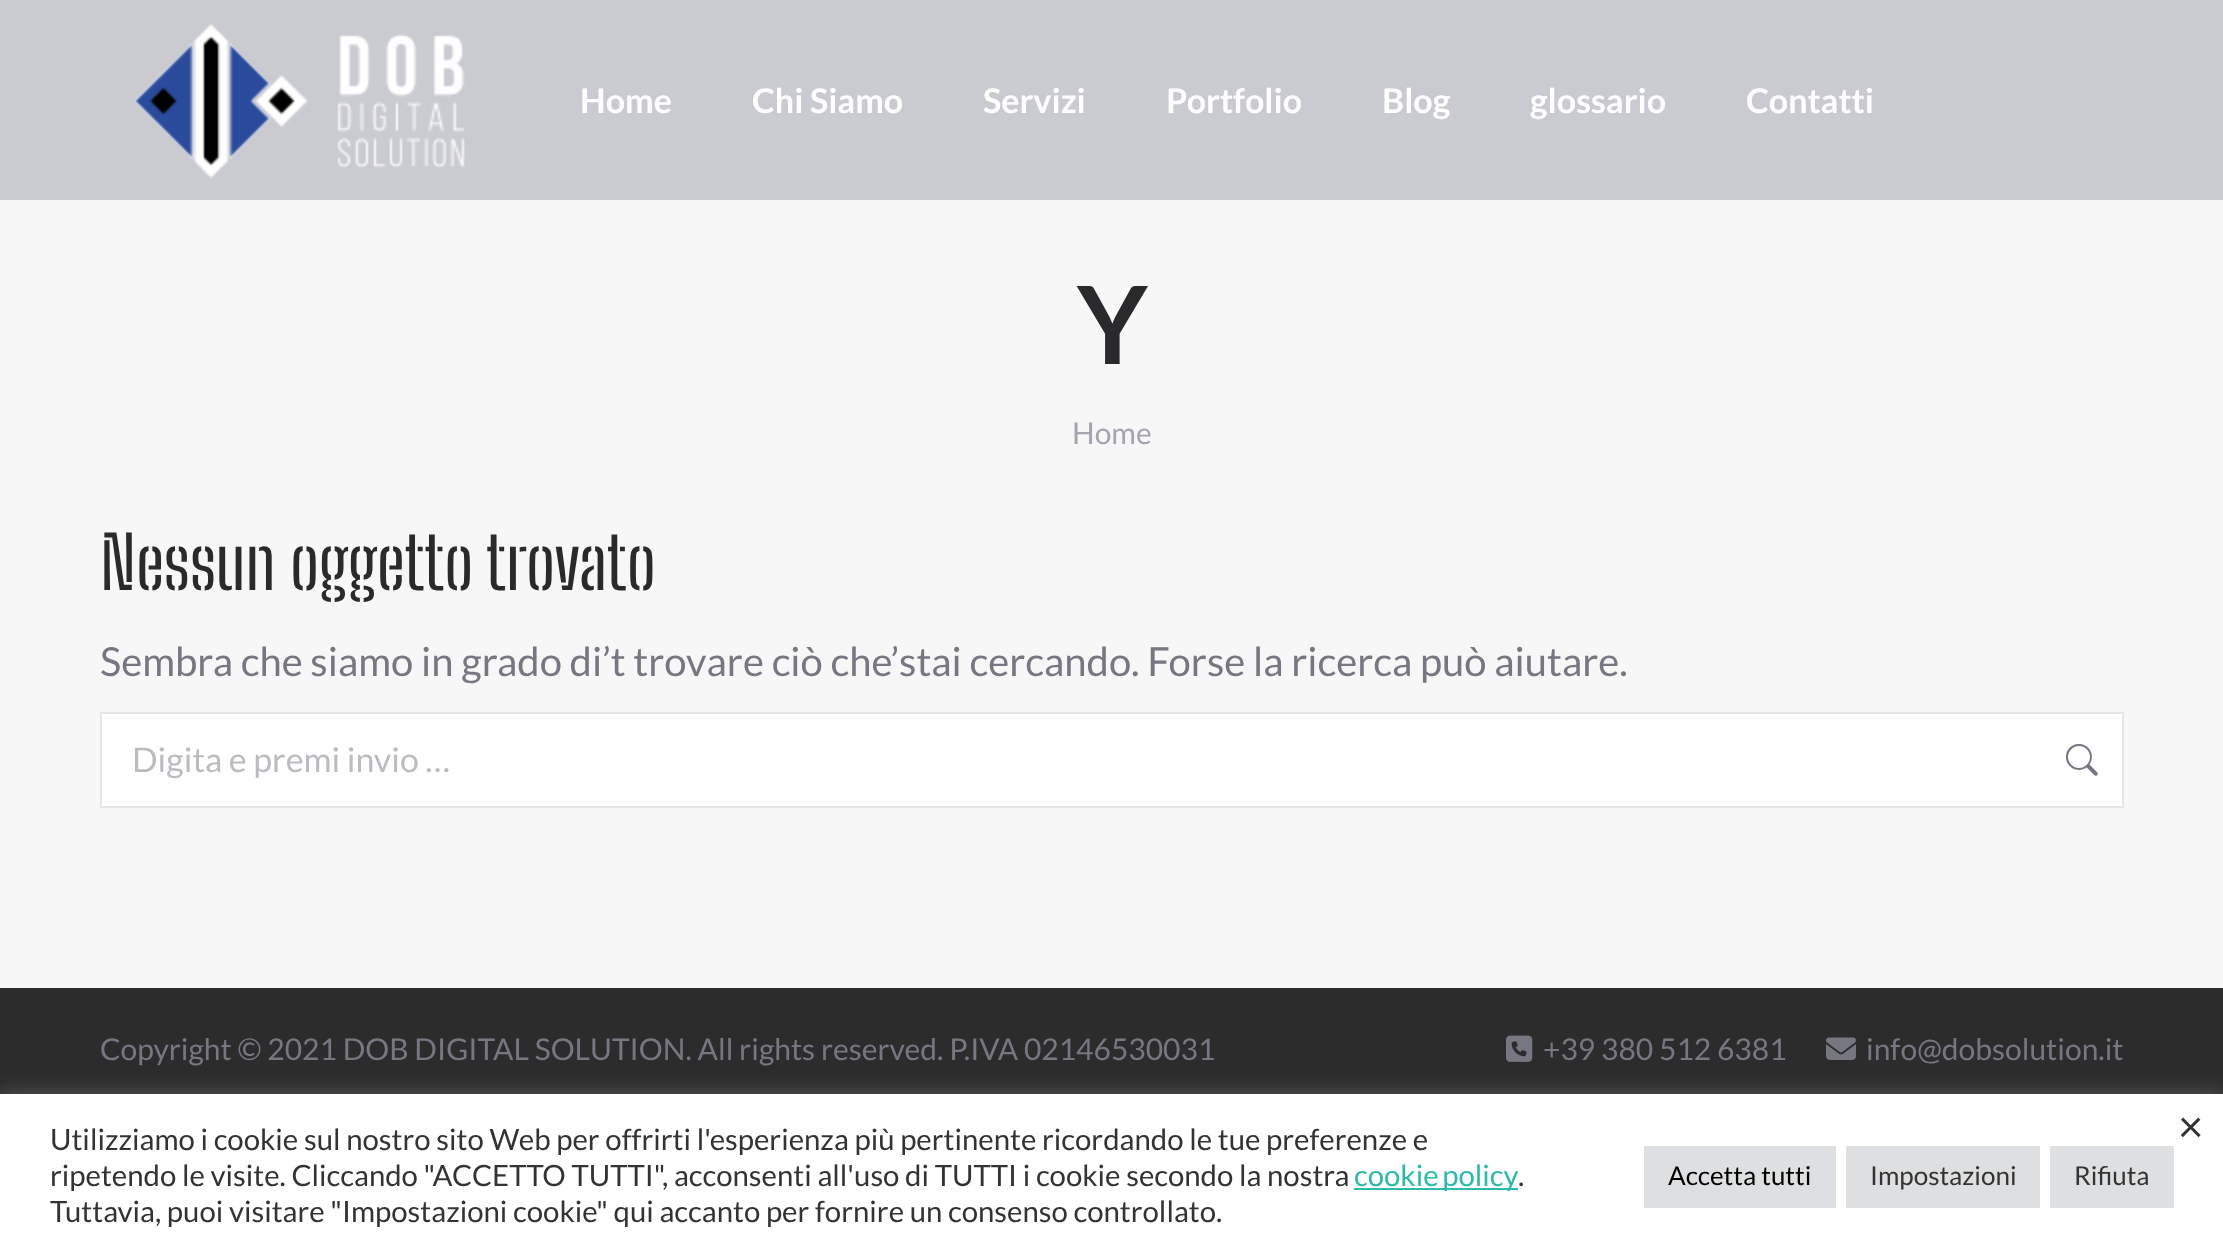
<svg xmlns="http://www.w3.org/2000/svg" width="2223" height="1258">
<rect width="100%" height="100%" fill="#f7f7f7"/>
<rect width="2223" height="200" fill="#cacbd1"/>
<image x="133" y="23" width="332" height="156" href="media/1.png"/>
<text x="580" y="113" style="font-family:Lato;font-size:34px;font-weight:bold;fill:#fff">Home</text>
<text x="752" y="113" style="font-family:Lato;font-size:34px;font-weight:bold;fill:#fff">Chi Siamo</text>
<text x="983" y="113" style="font-family:Lato;font-size:34px;font-weight:bold;fill:#fff">Servizi</text>
<text x="1166" y="113" style="font-family:Lato;font-size:34px;font-weight:bold;fill:#fff">Portfolio</text>
<text x="1382" y="113" style="font-family:Lato;font-size:34px;font-weight:bold;fill:#fff">Blog</text>
<text x="1530" y="113" style="font-family:Lato;font-size:34px;font-weight:bold;fill:#fff">glossario</text>
<text x="1746" y="113" style="font-family:Lato;font-size:34px;font-weight:bold;fill:#fff">Contatti</text>
<text x="1077" y="364" style="font-family:Lato;font-size:108px;font-weight:bold;fill:#2a2a2d">Y</text>
<text x="1072" y="444" style="font-family:Lato;font-size:30px;fill:#a4a5ae">Home</text>
<text x="100" y="590" style="font-family:Big Shoulders Stencil Text;font-size:72px;fill:#2a2a2d">Nessun oggetto trovato</text>
<text x="100" y="676" style="font-family:Lato;font-size:40px;fill:#767780">Sembra che siamo in grado di’t trovare ciò che’stai cercando. Forse la ricerca può aiutare.</text>
<rect x="101" y="713" width="2022" height="94" fill="#fff" stroke="#e6e6e6" stroke-width="2"/>
<text x="132" y="772" style="font-family:Lato;font-size:34px;fill:#bbbbc0">Digita e premi invio …</text>
<image x="2066" y="744" width="32" height="32" href="media/2.png"/>
<rect y="988" width="2223" height="106" fill="#1b1b1b"/>
<rect y="988" width="2223" height="106" fill="#ffffff14"/>
<text x="100" y="1060" style="font-family:Lato;font-size:30px;fill:#767780">Copyright © 2021 DOB DIGITAL SOLUTION. All rights reserved. P.IVA 02146530031</text>
<image x="1506" y="1035" width="27" height="27" href="media/3.png"/>
<text x="1543" y="1060" style="font-family:Lato;font-size:30px;fill:#767780">+39 380 512 6381</text>
<image x="1826" y="1037" width="30" height="23" href="media/4.png"/>
<text x="1866" y="1060" style="font-family:Lato;font-size:30px;fill:#767780">info@dobsolution.it</text>
<rect y="1092" width="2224" height="164" fill="#acabab4d" filter="blur(10px)"/>
<rect y="1094" width="2223" height="164" fill="#fff"/>
<text x="50" y="1150" style="font-family:Lato;font-size:29.35px;fill:#333">Utilizziamo i cookie sul nostro sito Web per offrirti l'esperienza più pertinente ricordando le tue preferenze e</text>
<text x="50" y="1186" style="font-family:Lato;font-size:29.35px;fill:#333">ripetendo le visite. Cliccando "ACCETTO TUTTI", acconsenti all'uso di TUTTI i cookie secondo la nostra</text>
<rect x="1354" y="1188" width="164" height="2" fill="#2ebaa9"/>
<text x="1354" y="1186" word-spacing="-2" style="font-family:Lato;font-size:29.35px;fill:#2ebaa9">cookie policy</text>
<text x="1518" y="1186" style="font-family:Lato;font-size:29.35px;fill:#333">.</text>
<text x="50" y="1222" style="font-family:Lato;font-size:29.35px;fill:#333">Tuttavia, puoi visitare "Impostazioni cookie" qui accanto per fornire un consenso controllato.</text>
<rect x="1644" y="1146" width="192" height="62" fill="#dedfe0"/>
<text x="1668" y="1185" style="font-family:Lato;font-size:26px;fill:#000">Accetta tutti</text>
<rect x="1846" y="1146" width="194" height="62" fill="#dedfe0"/>
<text x="1870" y="1185" style="font-family:Lato;font-size:26px;fill:#333">Impostazioni</text>
<rect x="2050" y="1146" width="124" height="62" fill="#dedfe0"/>
<text x="2074" y="1185" style="font-family:Lato;font-size:26px;fill:#333">Rifiuta</text>
<text x="2178" y="1142" style="font-family:Lato;font-size:44px;fill:#333">×</text>
</svg>
